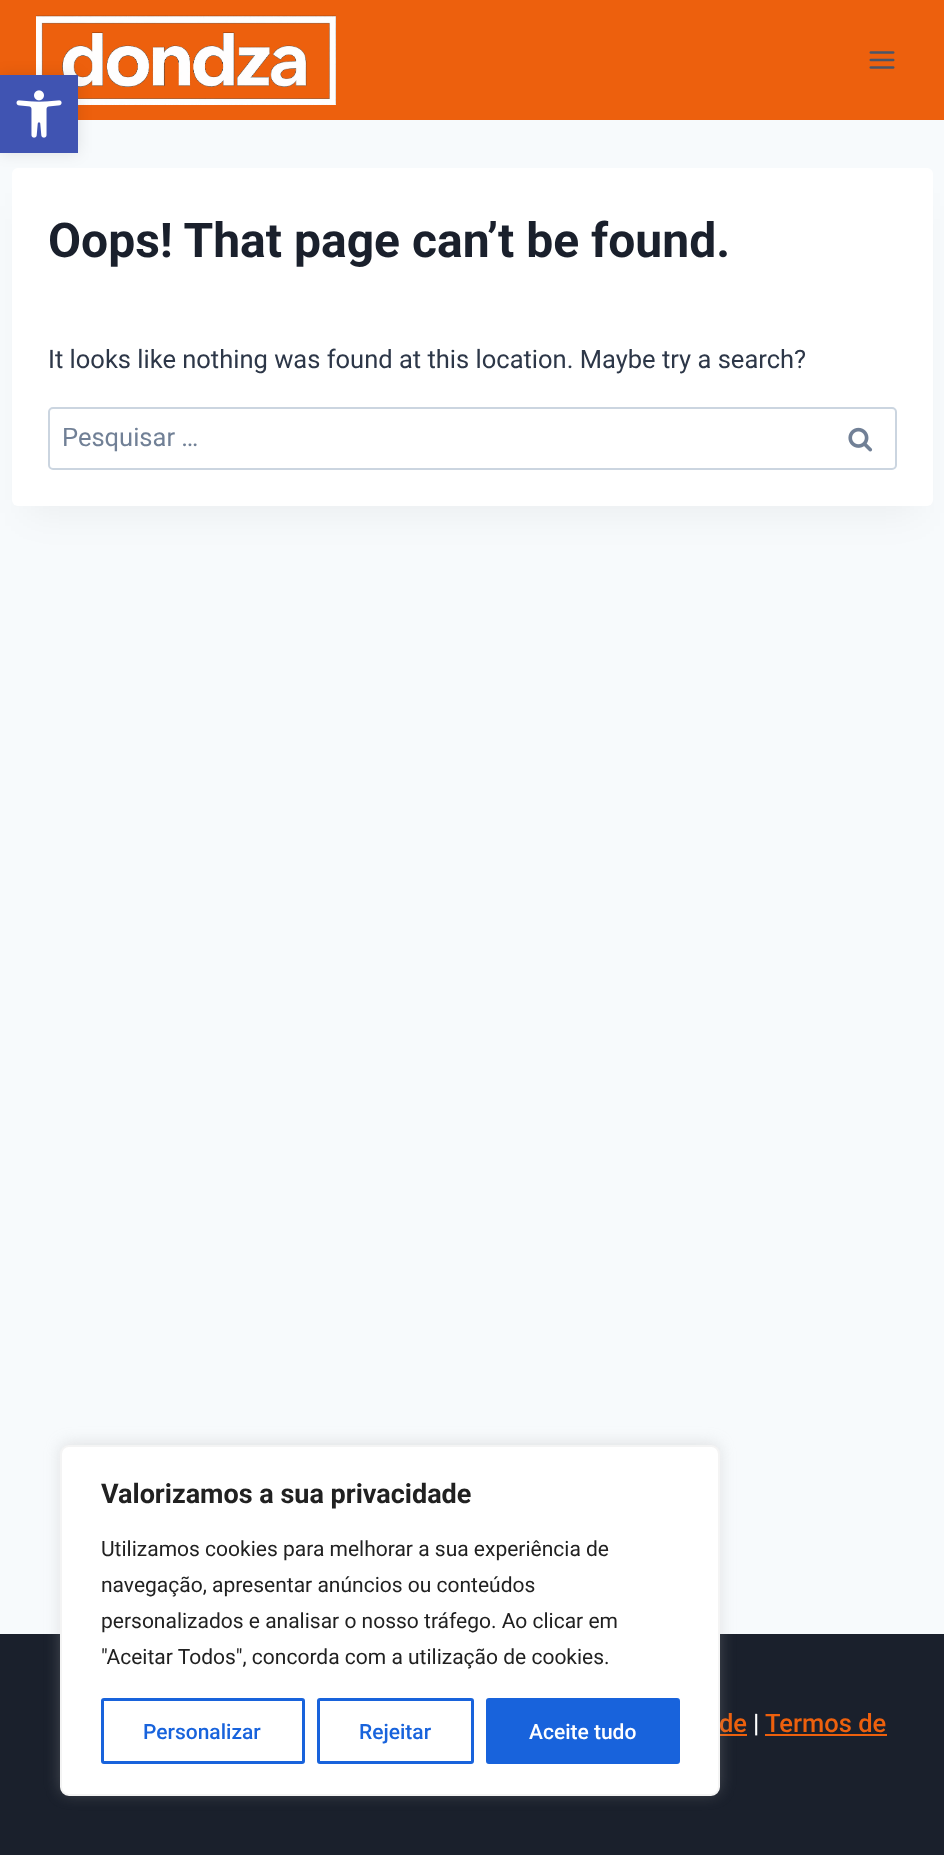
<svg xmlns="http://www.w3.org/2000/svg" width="944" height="1855">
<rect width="100%" height="100%" fill="#f7fafc"/>
<rect width="944" height="120" fill="#ed600d"/>
<image x="36" y="15" width="300" height="90" href="media/2.png"/>
<rect x="27" y="206" width="891" height="307" fill="#0000000d" filter="blur(19px)"/>
<rect x="12" y="168" width="921" height="338" rx="6" fill="#fff"/>
<rect y="75" width="78" height="78" fill="#0000001a" filter="blur(7.5px)"/>
<rect y="75" width="78" height="78" fill="#4054b2"/>
<image x="16" y="90" width="46" height="48" href="media/1.png"/>
<image x="869" y="51" width="26" height="18" href="media/3.png"/>
<text x="48" y="257" style="font-family:Roboto;font-size:48px;font-weight:bold;fill:#1a202c">Oops! That page can’t be found.</text>
<text x="48" y="368" style="font-family:Roboto;font-size:25.5px;fill:#2d3748">It looks like nothing was found at this location. Maybe try a search?</text>
<rect x="49" y="408" width="847" height="61" rx="4" fill="none" stroke="#cbd5e0" stroke-width="2"/>
<text x="62" y="446" style="font-family:Roboto;font-size:25.5px;fill:#718096">Pesquisar …</text>
<image x="848" y="427" width="25" height="25" href="media/4.png"/>
<rect y="1634" width="944" height="221" fill="#1a202c"/>
<text x="719" y="1732" style="font-family:Roboto;font-size:25.5px;font-weight:500;fill:#ed600d">de</text>
<rect x="720" y="1734" width="27" height="2" fill="#ed600d"/>
<text x="753" y="1732" style="font-family:Roboto;font-size:25.5px;font-weight:500;fill:#fff">|</text>
<text x="765" y="1732" style="font-family:Roboto;font-size:25.5px;font-weight:500;fill:#ed600d">Termos de</text>
<rect x="765" y="1734" width="122" height="2" fill="#ed600d"/>
<rect x="60" y="1443" width="660" height="351" rx="9" fill="#acabab4d" filter="blur(7.5px)"/>
<rect x="61" y="1446" width="658" height="349" rx="8" fill="#fff" stroke="#f4f4f4" stroke-width="2"/>
<text x="101" y="1503" style="font-family:Roboto;font-size:27px;font-weight:bold;fill:#212121">Valorizamos a sua privacidade</text>
<text x="101" y="1556" style="font-family:Roboto;font-size:21px;fill:#212121">Utilizamos cookies para melhorar a sua experiência de</text>
<text x="101" y="1592" style="font-family:Roboto;font-size:21px;fill:#212121">navegação, apresentar anúncios ou conteúdos</text>
<text x="101" y="1628" style="font-family:Roboto;font-size:21px;fill:#212121">personalizados e analisar o nosso tráfego. Ao clicar em</text>
<text x="101" y="1664" style="font-family:Roboto;font-size:21px;fill:#212121">"Aceitar Todos", concorda com a utilização de cookies.</text>
<rect x="102.5" y="1699.5" width="201" height="63" rx="1.5" fill="none" stroke="#1863dc" stroke-width="3"/>
<text x="143" y="1739" style="font-family:Roboto;font-size:21px;font-weight:500;fill:#1863dc">Personalizar</text>
<rect x="318.5" y="1699.5" width="154" height="63" rx="1.5" fill="none" stroke="#1863dc" stroke-width="3"/>
<text x="359" y="1739" style="font-family:Roboto;font-size:21px;font-weight:500;fill:#1863dc">Rejeitar</text>
<rect x="487.5" y="1699.5" width="191" height="63" rx="1.5" fill="#1863dc" stroke="#1863dc" stroke-width="3"/>
<text x="529" y="1739" style="font-family:Roboto;font-size:21px;font-weight:500;fill:#fff">Aceite tudo</text>
</svg>
